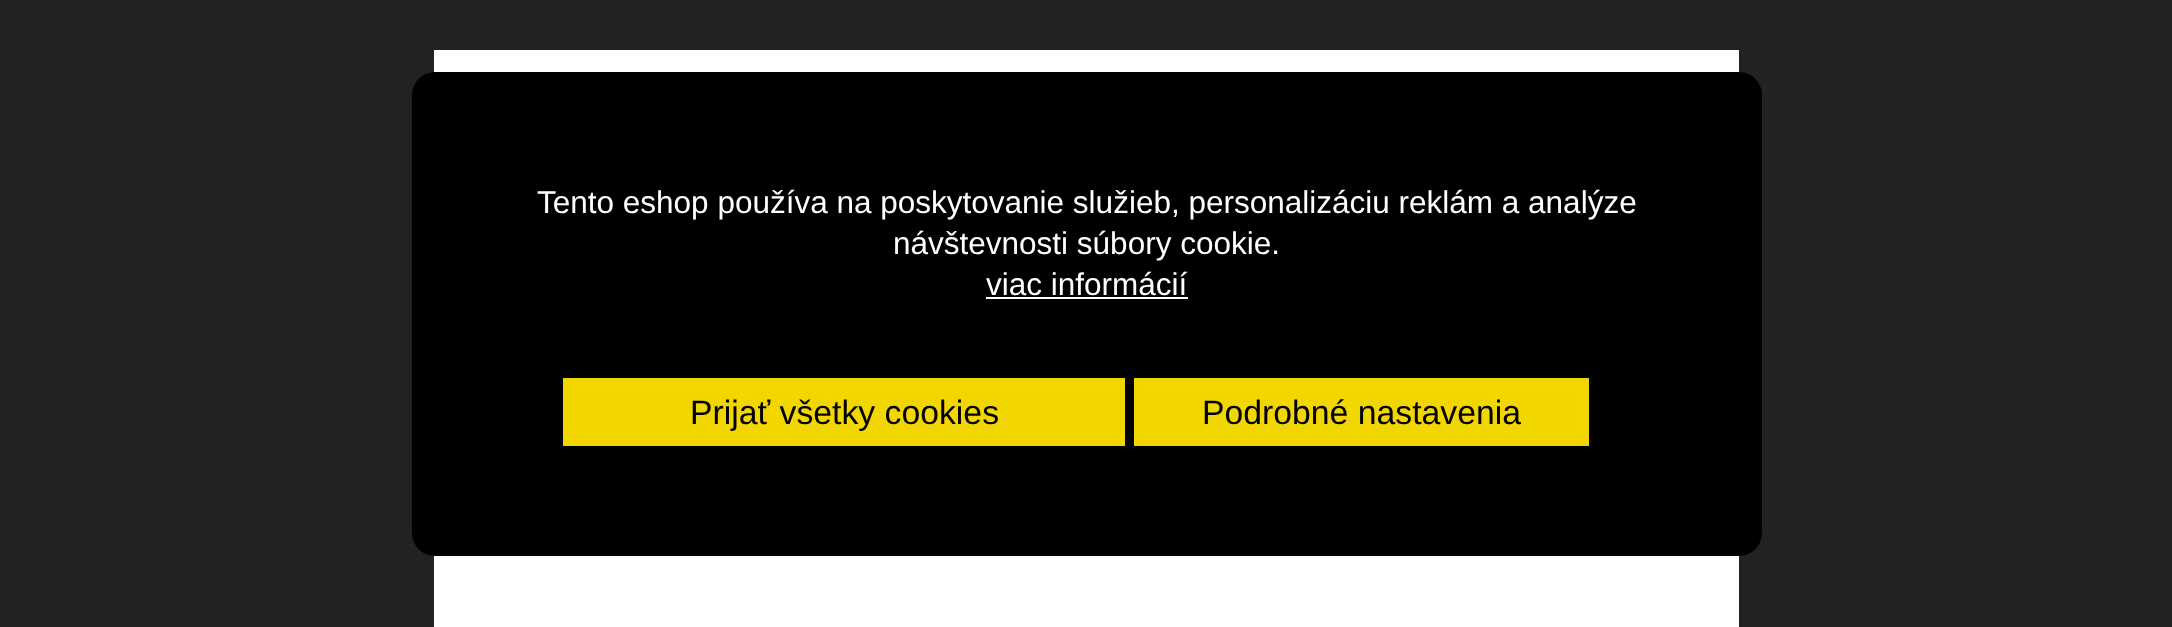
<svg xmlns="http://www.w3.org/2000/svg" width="2172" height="627">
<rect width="100%" height="100%" fill="#222"/>
<rect x="434" y="50" width="1305" height="577" fill="#fff"/>
<rect x="412" y="72" width="1350" height="484" rx="23" fill="#000"/>
<text x="537" y="213" style="font-family:Liberation Sans;font-size:31.5px;fill:#fff">Tento eshop používa na poskytovanie služieb, personalizáciu reklám a analýze</text>
<text x="893" y="254" style="font-family:Liberation Sans;font-size:31.5px;fill:#fff">návštevnosti súbory cookie.</text>
<text x="986" y="295" style="font-family:Liberation Sans;font-size:31.5px;fill:#fff">viac informácií</text>
<rect x="986" y="297" width="202" height="2" fill="#fff"/>
<rect x="563" y="378" width="562" height="68" fill="#f1d600"/>
<text x="690" y="424" style="font-family:Liberation Sans;font-size:33.75px;fill:#000">Prijať všetky cookies</text>
<rect x="1134" y="378" width="455" height="68" fill="#f1d600"/>
<text x="1202" y="424" style="font-family:Liberation Sans;font-size:33.75px;fill:#000">Podrobné nastavenia</text>
</svg>
